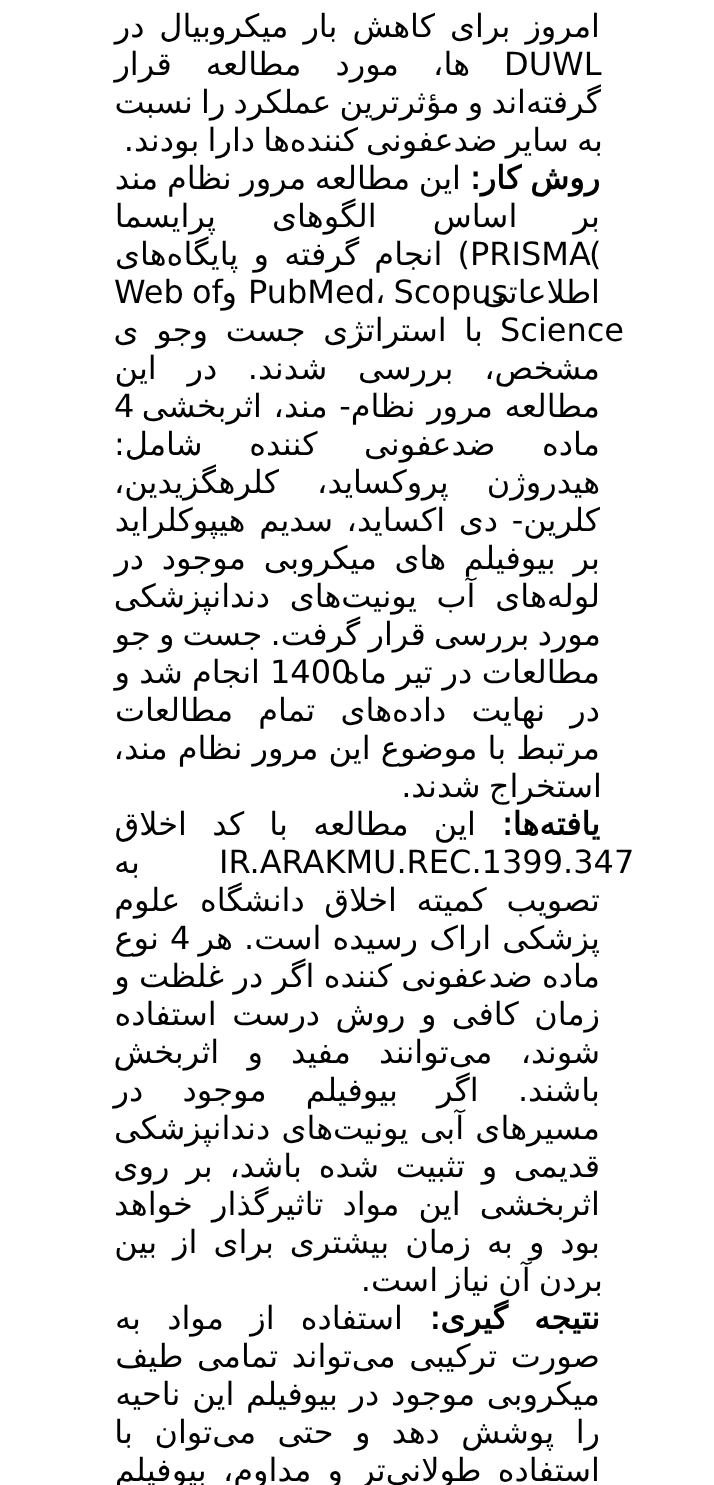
<svg xmlns="http://www.w3.org/2000/svg" width="714" height="1485">
<rect width="100%" height="100%" fill="#fff"/>
<text x="600" y="37" word-spacing="4.75" style="font-family:DejaVu Sans;font-size:32px;direction:rtl;fill:#000">امروز برای کاهش بار میکروبیال در</text>
<text x="504" y="75" style="font-family:DejaVu Sans;font-size:32px;fill:#000">DUWL</text>
<text x="470" y="75" word-spacing="24" style="font-family:DejaVu Sans;font-size:32px;direction:rtl;fill:#000">ها، مورد مطالعه قرار</text>
<text x="601" y="113" word-spacing="-2" style="font-family:DejaVu Sans;font-size:32px;direction:rtl;fill:#000">گرفته‌اند و مؤثرترین عملکرد را نسبت</text>
<text x="603" y="151" word-spacing="-2" style="font-family:DejaVu Sans;font-size:32px;direction:rtl;fill:#000">به سایر ضدعفونی کننده‌ها دارا بودند.</text>
<text x="600" y="189" word-spacing="-1" style="font-family:DejaVu Sans;font-size:32px;font-weight:bold;direction:rtl;fill:#000">روش کار:</text>
<text x="461" y="189" word-spacing="-1.5" style="font-family:DejaVu Sans;font-size:32px;direction:rtl;fill:#000">این مطالعه مرور نظام مند</text>
<text x="600" y="227" word-spacing="46" style="font-family:DejaVu Sans;font-size:32px;direction:rtl;fill:#000">بر اساس الگوهای پرایسما</text>
<text x="589" y="265" style="font-family:DejaVu Sans;font-size:32px;fill:#000">(</text>
<text x="470" y="265" style="font-family:DejaVu Sans;font-size:32px;fill:#000">PRISMA</text>
<text x="470" y="265" word-spacing="5" style="font-family:DejaVu Sans;font-size:32px;direction:rtl;fill:#000">)‌ انجام گرفته و پایگاه‌های</text>
<text x="248" y="303" word-spacing="-2" style="font-family:DejaVu Sans;font-size:32px;fill:#000">PubMed، Scopus</text>
<text x="600" y="303" style="font-family:DejaVu Sans;font-size:32px;direction:rtl;fill:#000">اطلاعاتی</text>
<text x="114" y="303" word-spacing="-2" style="font-family:DejaVu Sans;font-size:32px;fill:#000">Web of</text>
<text x="237" y="303" style="font-family:DejaVu Sans;font-size:32px;direction:rtl;fill:#000">و</text>
<text x="500" y="341" style="font-family:DejaVu Sans;font-size:32px;fill:#000">Science</text>
<text x="483" y="341" word-spacing="7.5" style="font-family:DejaVu Sans;font-size:32px;direction:rtl;fill:#000">با استراتژی جست وجو ی</text>
<text x="600" y="379" word-spacing="20.5" style="font-family:DejaVu Sans;font-size:32px;direction:rtl;fill:#000">مشخص، بررسی شدند. در این</text>
<text x="600" y="417" word-spacing="1.5" style="font-family:DejaVu Sans;font-size:32px;direction:rtl;fill:#000">مطالعه مرور نظام- مند، اثربخشی</text>
<text x="114" y="417" style="font-family:DejaVu Sans;font-size:32px;fill:#000">4</text>
<text x="600" y="455" word-spacing="36.5" style="font-family:DejaVu Sans;font-size:32px;direction:rtl;fill:#000">ماده ضدعفونی کننده شامل:</text>
<text x="600" y="493" word-spacing="28" style="font-family:DejaVu Sans;font-size:32px;direction:rtl;fill:#000">هیدروژن پروکساید، کلرهگزیدین،</text>
<text x="600" y="531" word-spacing="3.5" style="font-family:DejaVu Sans;font-size:32px;direction:rtl;fill:#000">کلرین- دی اکساید، سدیم هیپوکلراید</text>
<text x="600" y="569" word-spacing="7.5" style="font-family:DejaVu Sans;font-size:32px;direction:rtl;fill:#000">بر بیوفیلم های میکروبی موجود در</text>
<text x="600" y="607" word-spacing="9.5" style="font-family:DejaVu Sans;font-size:32px;direction:rtl;fill:#000">لوله‌های آب یونیت‌های دندانپزشکی</text>
<text x="601" y="645" word-spacing="-2" style="font-family:DejaVu Sans;font-size:32px;direction:rtl;fill:#000">مورد بررسی قرار گرفت. جست و جو</text>
<text x="270" y="683" style="font-family:DejaVu Sans;font-size:32px;fill:#000">1400</text>
<text x="600" y="683" word-spacing="-0.5" style="font-family:DejaVu Sans;font-size:32px;direction:rtl;fill:#000">مطالعات در تیر ماه</text>
<text x="260" y="683" word-spacing="-1" style="font-family:DejaVu Sans;font-size:32px;direction:rtl;fill:#000">انجام شد و</text>
<text x="600" y="721" word-spacing="15" style="font-family:DejaVu Sans;font-size:32px;direction:rtl;fill:#000">در نهایت داده‌های تمام مطالعات</text>
<text x="600" y="759" style="font-family:DejaVu Sans;font-size:32px;direction:rtl;fill:#000">مرتبط با موضوع این مرور نظام مند،</text>
<text x="602" y="797" word-spacing="-2" style="font-family:DejaVu Sans;font-size:32px;direction:rtl;fill:#000">استخراج شدند.</text>
<text x="600" y="835" style="font-family:DejaVu Sans;font-size:32px;font-weight:bold;direction:rtl;fill:#000">یافته‌ها:</text>
<text x="476" y="835" word-spacing="15" style="font-family:DejaVu Sans;font-size:32px;direction:rtl;fill:#000">این مطالعه با کد اخلاق</text>
<text x="219" y="873" style="font-family:DejaVu Sans;font-size:32px;fill:#000">IR.ARAKMU.REC.1399.347</text>
<text x="140" y="873" style="font-family:DejaVu Sans;font-size:32px;direction:rtl;fill:#000">به</text>
<text x="600" y="911" word-spacing="9.5" style="font-family:DejaVu Sans;font-size:32px;direction:rtl;fill:#000">تصویب کمیته اخلاق دانشگاه علوم</text>
<text x="600" y="949" word-spacing="1" style="font-family:DejaVu Sans;font-size:32px;direction:rtl;fill:#000">پزشکی اراک رسیده است. هر</text>
<text x="170" y="949" style="font-family:DejaVu Sans;font-size:32px;fill:#000">4</text>
<text x="159" y="949" style="font-family:DejaVu Sans;font-size:32px;direction:rtl;fill:#000">نوع</text>
<text x="600" y="987" word-spacing="-0.75" style="font-family:DejaVu Sans;font-size:32px;direction:rtl;fill:#000">ماده ضدعفونی کننده اگر در غلظت و</text>
<text x="600" y="1025" word-spacing="5.25" style="font-family:DejaVu Sans;font-size:32px;direction:rtl;fill:#000">زمان کافی و روش درست استفاده</text>
<text x="600" y="1063" word-spacing="18" style="font-family:DejaVu Sans;font-size:32px;direction:rtl;fill:#000">شوند، می‌توانند مفید و اثربخش</text>
<text x="600" y="1101" word-spacing="29" style="font-family:DejaVu Sans;font-size:32px;direction:rtl;fill:#000">باشند. اگر بیوفیلم موجود در</text>
<text x="600" y="1139" word-spacing="1" style="font-family:DejaVu Sans;font-size:32px;direction:rtl;fill:#000">مسیرهای آبی یونیت‌های دندانپزشکی</text>
<text x="600" y="1177" word-spacing="6.5" style="font-family:DejaVu Sans;font-size:32px;direction:rtl;fill:#000">قدیمی و تثبیت شده باشد، بر روی</text>
<text x="600" y="1215" word-spacing="9" style="font-family:DejaVu Sans;font-size:32px;direction:rtl;fill:#000">اثربخشی این مواد تاثیرگذار خواهد</text>
<text x="600" y="1253" word-spacing="5.75" style="font-family:DejaVu Sans;font-size:32px;direction:rtl;fill:#000">بود و به زمان بیشتری برای از بین</text>
<text x="603" y="1291" word-spacing="-2" style="font-family:DejaVu Sans;font-size:32px;direction:rtl;fill:#000">بردن آن نیاز است.</text>
<text x="600" y="1329" word-spacing="16" style="font-family:DejaVu Sans;font-size:32px;font-weight:bold;direction:rtl;fill:#000">نتیجه گیری:</text>
<text x="403" y="1329" word-spacing="16" style="font-family:DejaVu Sans;font-size:32px;direction:rtl;fill:#000">استفاده از مواد به</text>
<text x="600" y="1367" word-spacing="3.5" style="font-family:DejaVu Sans;font-size:32px;direction:rtl;fill:#000">صورت ترکیبی می‌تواند تمامی طیف</text>
<text x="600" y="1405" word-spacing="1.5" style="font-family:DejaVu Sans;font-size:32px;direction:rtl;fill:#000">میکروبی موجود در بیوفیلم این ناحیه</text>
<text x="600" y="1443" word-spacing="11.25" style="font-family:DejaVu Sans;font-size:32px;direction:rtl;fill:#000">را پوشش دهد و حتی می‌توان با</text>
<text x="600" y="1481" word-spacing="6" style="font-family:DejaVu Sans;font-size:32px;direction:rtl;fill:#000">استفاده طولانی‌تر و مداوم، بیوفیلم</text>
</svg>
